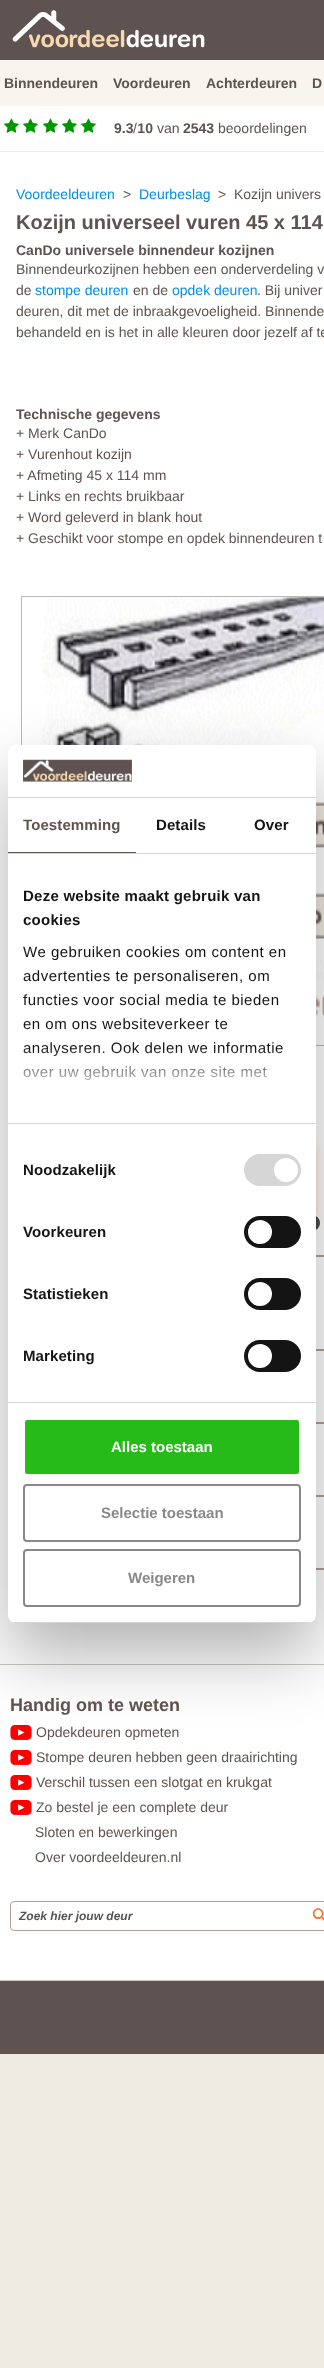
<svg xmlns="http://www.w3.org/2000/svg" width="324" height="2368">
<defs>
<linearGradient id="g1" gradientUnits="userSpaceOnUse" x1="156" y1="1123" x2="156" y2="1048"><stop offset="0" stop-color="#fff"/><stop offset="0.5" stop-color="#fff" stop-opacity="0.8"/><stop offset="1" stop-color="#fff" stop-opacity="0"/></linearGradient>
<clipPath id="clip1"><rect x="8" y="745" width="308" height="878" rx="8"/></clipPath>
</defs>
<rect width="100%" height="100%" fill="#f0ebe2"/>
<rect y="106" width="324" height="1874" fill="#fff"/>
<rect width="324" height="60" fill="#5e5351"/>
<image x="12" y="10" width="193" height="38" href="media/1.png"/>
<rect y="60" width="324" height="46" fill="#f8f4ee"/>
<text x="4" y="88" style="font-family:Liberation Sans;font-size:14px;font-weight:bold;fill:#5f534f">Binnendeuren</text>
<text x="113" y="88" style="font-family:Liberation Sans;font-size:14px;font-weight:bold;fill:#5f534f">Voordeuren</text>
<text x="206" y="88" style="font-family:Liberation Sans;font-size:14px;font-weight:bold;fill:#5f534f">Achterdeuren</text>
<text x="312" y="88" style="font-family:Liberation Sans;font-size:14px;font-weight:bold;fill:#5f534f">D</text>
<rect y="151" width="324" height="1" fill="#f0ebe2"/>
<image x="4" y="118" width="15" height="15" href="media/2.png"/>
<image x="23" y="118" width="15" height="15" href="media/2.png"/>
<image x="43" y="118" width="15" height="15" href="media/2.png"/>
<image x="62" y="118" width="15" height="15" href="media/2.png"/>
<image x="81" y="118" width="15" height="15" href="media/2.png"/>
<text x="114" y="133" style="font-family:Liberation Sans;font-size:14px;font-weight:bold;fill:#5f534f">9.3 10</text>
<text x="133" y="133" style="font-family:Liberation Sans;font-size:14px;fill:#5f534f">/</text>
<text x="218" y="133" style="font-family:Liberation Sans;font-size:14px;fill:#5f534f">beoordelingen</text>
<text x="157" y="133" style="font-family:Liberation Sans;font-size:14px;fill:#5f534f">van</text>
<text x="183" y="133" style="font-family:Liberation Sans;font-size:14px;font-weight:bold;fill:#5f534f">2543</text>
<text x="16" y="199" style="font-family:Liberation Sans;font-size:14px;fill:#0090e3">Voordeeldeuren</text>
<text x="123" y="199" style="font-family:Liberation Sans;font-size:14px;fill:#5f534f">&gt;</text>
<text x="139" y="199" style="font-family:Liberation Sans;font-size:14px;fill:#0090e3">Deurbeslag</text>
<text x="218" y="199" style="font-family:Liberation Sans;font-size:14px;fill:#5f534f" xml:space="preserve">&gt;  Kozijn univers</text>
<text x="16" y="229" style="font-family:Liberation Sans;font-size:20px;font-weight:bold;fill:#5f534f">Kozijn universeel vuren 45 x 114</text>
<text x="16" y="255" style="font-family:Liberation Sans;font-size:14px;font-weight:bold;fill:#5f534f">CanDo universele binnendeur kozijnen</text>
<text x="16" y="274" style="font-family:Liberation Sans;font-size:14px;fill:#5f534f">Binnendeurkozijnen hebben een onderverdeling v</text>
<text x="16" y="295" style="font-family:Liberation Sans;font-size:14px;fill:#5f534f">de</text>
<text x="35" y="295" style="font-family:Liberation Sans;font-size:14px;fill:#0090e3">stompe deuren</text>
<text x="133" y="295" style="font-family:Liberation Sans;font-size:14px;fill:#5f534f">en de</text>
<text x="172" y="295" style="font-family:Liberation Sans;font-size:14px;fill:#0090e3">opdek deuren</text>
<text x="257" y="295" style="font-family:Liberation Sans;font-size:14px;fill:#5f534f">. Bij univer</text>
<text x="16" y="316" style="font-family:Liberation Sans;font-size:14px;fill:#5f534f">deuren, dit met de inbraakgevoeligheid. Binnende</text>
<text x="16" y="337" style="font-family:Liberation Sans;font-size:14px;fill:#5f534f">behandeld en is het in alle kleuren door jezelf af te</text>
<text x="16" y="419" style="font-family:Liberation Sans;font-size:14px;font-weight:bold;fill:#5f534f">Technische gegevens</text>
<text x="16" y="438" style="font-family:Liberation Sans;font-size:14px;fill:#5f534f">+ Merk CanDo</text>
<text x="16" y="459" style="font-family:Liberation Sans;font-size:14px;fill:#5f534f">+ Vurenhout kozijn</text>
<text x="16" y="480" style="font-family:Liberation Sans;font-size:14px;fill:#5f534f">+ Afmeting 45 x 114 mm</text>
<text x="16" y="501" style="font-family:Liberation Sans;font-size:14px;fill:#5f534f">+ Links en rechts bruikbaar</text>
<text x="16" y="522" style="font-family:Liberation Sans;font-size:14px;fill:#5f534f">+ Word geleverd in blank hout</text>
<text x="16" y="543" style="font-family:Liberation Sans;font-size:14px;fill:#5f534f">+ Geschikt voor stompe en opdek binnendeuren t</text>
<image x="42" y="597" width="282" height="425" href="media/3.png"/>
<rect x="21.5" y="596.5" width="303" height="449" fill="none" stroke="#b9b9b9"/>
<rect x="316" y="1255" width="8" height="2" fill="#b4a097"/>
<rect x="316" y="1349" width="8" height="2" fill="#b4a097"/>
<rect x="316" y="1422" width="8" height="2" fill="#b4a097"/>
<rect x="316" y="1495" width="8" height="2" fill="#b4a097"/>
<rect x="316" y="1568" width="8" height="2" fill="#b4a097"/>
<rect x="161" y="1146" width="154" height="84" rx="8" fill="#ff71004d" filter="blur(5px)"/>
<circle cx="312" cy="1223" r="9" fill="#000000b3" stroke="#fff" stroke-width="2"/>
<rect y="1664" width="324" height="1" fill="#cac7c3"/>
<image x="10" y="1725" width="22" height="15" href="media/5.png"/>
<image x="10" y="1750" width="22" height="15" href="media/5.png"/>
<rect x="8" y="777" width="308" height="878" rx="8" fill="#0000004d" filter="blur(34px)"/>
<rect x="8" y="745" width="308" height="878" rx="8" fill="#fff"/>
<rect x="8" y="797" width="308" height="1" fill="#d6d6d6"/>
<image x="23" y="759" width="109" height="23" href="media/4.png"/>
<rect x="8" y="853" width="308" height="1" fill="#d6d6d6"/>
<rect x="8" y="852" width="128" height="1" fill="#5e5351"/>
<text x="23" y="830" style="font-family:Liberation Sans;font-size:15px;font-weight:bold;letter-spacing:0.1px;fill:#5f534f">Toestemming</text>
<text x="156" y="830" style="font-family:Liberation Sans;font-size:15px;font-weight:bold;letter-spacing:0.1px;fill:#141414">Details</text>
<text x="254" y="830" style="font-family:Liberation Sans;font-size:15px;font-weight:bold;letter-spacing:0.1px;fill:#141414">Over</text>
<rect x="8" y="1123" width="308" height="1" fill="#d6d6d6"/>
<text x="23" y="901" style="font-family:Liberation Sans;font-size:15px;font-weight:bold;letter-spacing:0.25px;fill:#141414">Deze website maakt gebruik van</text>
<text x="23" y="925" style="font-family:Liberation Sans;font-size:15px;font-weight:bold;letter-spacing:0.25px;fill:#141414">cookies</text>
<text x="23" y="957" style="font-family:Liberation Sans;font-size:15px;letter-spacing:0.5px;fill:#141414">We gebruiken cookies om content en</text>
<text x="23" y="981" style="font-family:Liberation Sans;font-size:15px;letter-spacing:0.5px;fill:#141414">advertenties te personaliseren, om</text>
<text x="23" y="1005" style="font-family:Liberation Sans;font-size:15px;letter-spacing:0.5px;fill:#141414">functies voor social media te bieden</text>
<text x="23" y="1029" style="font-family:Liberation Sans;font-size:15px;letter-spacing:0.5px;fill:#141414">en om ons websiteverkeer te</text>
<text x="23" y="1053" style="font-family:Liberation Sans;font-size:15px;letter-spacing:0.5px;fill:#141414">analyseren. Ook delen we informatie</text>
<text x="23" y="1077" style="font-family:Liberation Sans;font-size:15px;letter-spacing:0.5px;fill:#141414">over uw gebruik van onze site met</text>
<rect x="23" y="1049" width="260" height="32" fill="url(#g1)"/>
<rect x="8" y="1402" width="308" height="1" fill="#d6d6d6"/>
<text x="23" y="1175" style="font-family:Liberation Sans;font-size:15px;font-weight:bold;letter-spacing:0.1px;fill:#141414">Noodzakelijk</text>
<rect x="244" y="1154" width="57" height="32" rx="16" fill="#d6d6d6"/>
<circle cx="286" cy="1170" r="12" fill="#fff"/>
<text x="23" y="1237" style="font-family:Liberation Sans;font-size:15px;font-weight:bold;letter-spacing:0.1px;fill:#141414">Voorkeuren</text>
<rect x="244" y="1216" width="57" height="32" rx="16" fill="#141414"/>
<circle cx="260" cy="1232" r="12" fill="#fff"/>
<text x="23" y="1299" style="font-family:Liberation Sans;font-size:15px;font-weight:bold;letter-spacing:0.1px;fill:#141414">Statistieken</text>
<rect x="244" y="1278" width="57" height="32" rx="16" fill="#141414"/>
<circle cx="260" cy="1294" r="12" fill="#fff"/>
<text x="23" y="1361" style="font-family:Liberation Sans;font-size:15px;font-weight:bold;letter-spacing:0.1px;fill:#141414">Marketing</text>
<rect x="244" y="1340" width="57" height="32" rx="16" fill="#141414"/>
<circle cx="260" cy="1356" r="12" fill="#fff"/>
<g clip-path="url(#clip1)">
<rect x="8" y="1622" width="308" height="1" fill="#d6d6d6"/>
</g>
<rect x="24" y="1419" width="276" height="56" rx="3" fill="#27bb19" stroke="#fff" stroke-width="2"/>
<text x="111" y="1452" style="font-family:Liberation Sans;font-size:15px;font-weight:bold;fill:#fff">Alles toestaan</text>
<rect x="24" y="1485" width="276" height="56" rx="3" fill="none" stroke="#888" stroke-width="2"/>
<text x="101" y="1518" style="font-family:Liberation Sans;font-size:15px;font-weight:bold;fill:#888">Selectie toestaan</text>
<rect x="24" y="1550" width="276" height="56" rx="3" fill="none" stroke="#888" stroke-width="2"/>
<text x="128" y="1583" style="font-family:Liberation Sans;font-size:15px;font-weight:bold;fill:#888">Weigeren</text>
<text x="10" y="1711" style="font-family:Liberation Sans;font-size:18px;font-weight:bold;fill:#5f534f">Handig om te weten</text>
<text x="36" y="1737" style="font-family:Liberation Sans;font-size:14px;fill:#5f534f">Opdekdeuren opmeten</text>
<text x="36" y="1762" style="font-family:Liberation Sans;font-size:14px;fill:#5f534f">Stompe deuren hebben geen draairichting</text>
<image x="10" y="1775" width="22" height="15" href="media/5.png"/>
<text x="36" y="1787" style="font-family:Liberation Sans;font-size:14px;fill:#5f534f">Verschil tussen een slotgat en krukgat</text>
<image x="10" y="1800" width="22" height="15" href="media/5.png"/>
<text x="36" y="1812" style="font-family:Liberation Sans;font-size:14px;fill:#5f534f">Zo bestel je een complete deur</text>
<text x="35" y="1837" style="font-family:Liberation Sans;font-size:14px;fill:#5f534f">Sloten en bewerkingen</text>
<text x="35" y="1862" style="font-family:Liberation Sans;font-size:14px;fill:#5f534f">Over voordeeldeuren.nl</text>
<image x="312" y="1908" width="12" height="13" href="media/6.png"/>
<rect x="10.5" y="1901.5" width="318" height="29" rx="3.5" fill="none" stroke="#b59f97"/>
<text x="19" y="1920" style="font-family:Liberation Sans;font-size:12px;font-weight:bold;font-style:italic;fill:#555">Zoek hier jouw deur</text>
<rect y="1981" width="324" height="73" fill="#5e5351"/>
<rect y="1980" width="324" height="1" fill="#cac7c3"/>
</svg>
